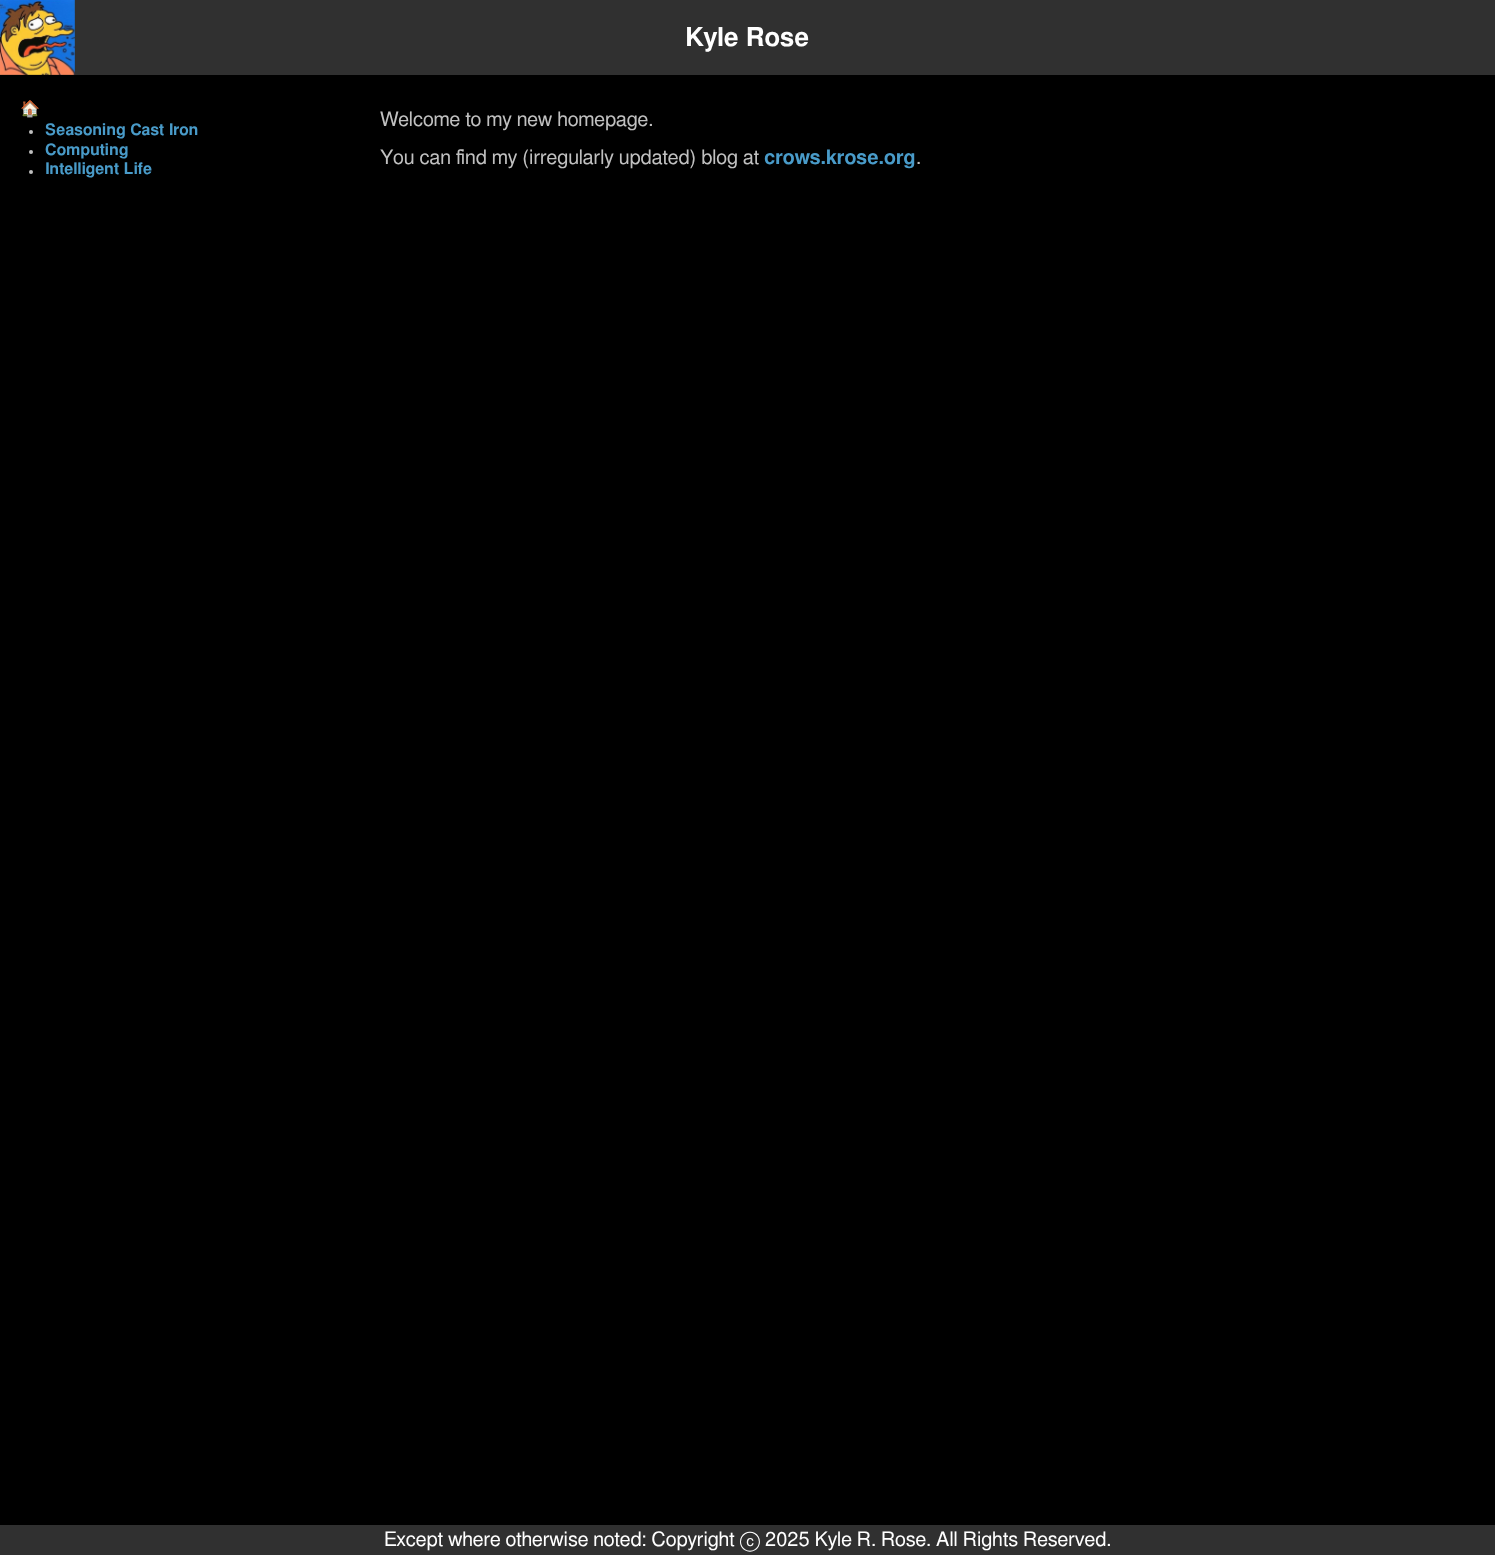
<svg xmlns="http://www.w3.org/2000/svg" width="1495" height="1555">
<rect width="100%" height="100%" fill="#000"/>
<rect width="1495" height="75" fill="#303030"/>
<image x="0" y="0" width="75" height="75" href="media/1.png"/>
<text x="685" y="46" style="font-family:FreeSans;font-size:26px;font-weight:600;fill:#fff">Kyle Rose</text>
<text x="20" y="114" style="font-family:Noto Color Emoji;font-size:16px;font-weight:bold;fill:#499bc9">🏠</text>
<circle cx="31" cy="132" r="2" fill="#c0c0c0"/>
<text x="45" y="135" style="font-family:FreeSans;font-size:16px;font-weight:600;fill:#499bc9">Seasoning Cast Iron</text>
<circle cx="31" cy="152" r="2" fill="#c0c0c0"/>
<text x="45" y="155" style="font-family:FreeSans;font-size:16px;font-weight:600;fill:#499bc9">Computing</text>
<circle cx="31" cy="172" r="2" fill="#c0c0c0"/>
<text x="45" y="174" style="font-family:FreeSans;font-size:16px;font-weight:600;fill:#499bc9">Intelligent Life</text>
<text x="380" y="126" style="font-family:FreeSans;font-size:20px;fill:#c0c0c0">Welcome to my new homepage.</text>
<text x="380" y="164" style="font-family:FreeSans;font-size:20px;fill:#c0c0c0">You can find my (irregularly updated) blog at</text>
<text x="764" y="164" style="font-family:FreeSans;font-size:20px;font-weight:600;fill:#499bc9">crows.krose.org</text>
<text x="916" y="164" style="font-family:FreeSans;font-size:20px;fill:#c0c0c0">.</text>
<rect y="1525" width="1495" height="30" fill="#303030"/>
<text x="384" y="1546" style="font-family:FreeSans;font-size:20px;fill:#fff">Except where otherwise noted: Copyright ⓒ 2025 Kyle R. Rose. All Rights Reserved.</text>
</svg>
